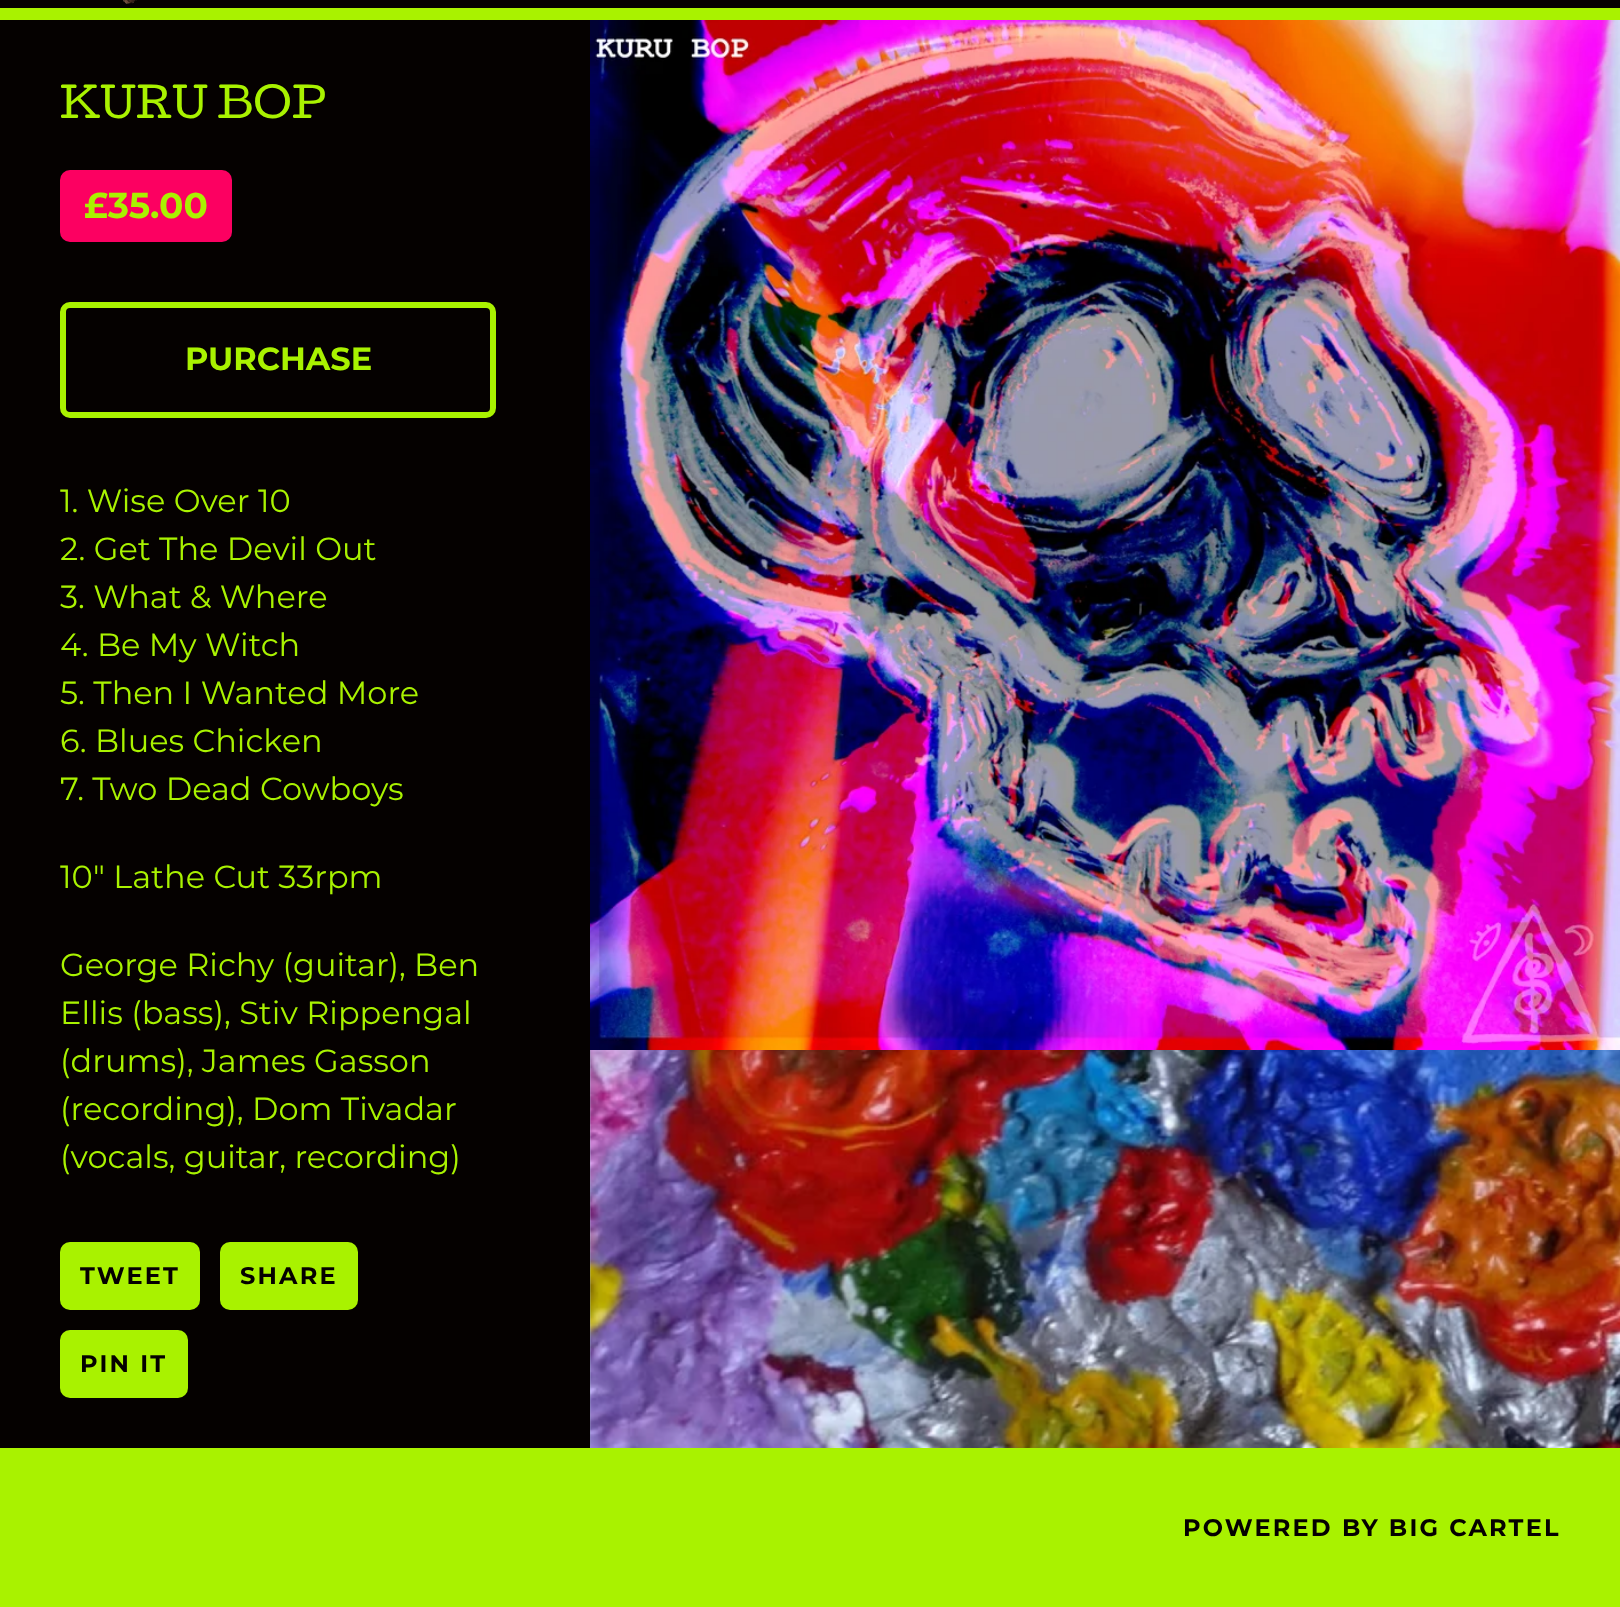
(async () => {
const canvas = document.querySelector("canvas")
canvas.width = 1620
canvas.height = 1607
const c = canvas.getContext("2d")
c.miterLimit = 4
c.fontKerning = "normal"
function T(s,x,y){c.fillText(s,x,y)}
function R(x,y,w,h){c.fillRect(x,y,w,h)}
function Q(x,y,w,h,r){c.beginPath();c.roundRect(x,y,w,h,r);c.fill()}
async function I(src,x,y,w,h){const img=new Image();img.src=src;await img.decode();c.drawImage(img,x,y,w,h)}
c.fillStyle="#050100"
R(0,0,1620,1607)
c.fillStyle="#a9f200"
R(0,8,1620,12)
await I("1.png",123,0,14,4)
c.font="40px Cutive"
T("KURU BOP",60,118)
c.fillStyle="#fc0061"
Q(60,170,172,72,10)
c.font="bold 36px Montserrat"
c.fillStyle="#a9f200"
T("£35.00",84,218)
c.beginPath()
c.roundRect(63,305,430,110,7)
c.strokeStyle="#a9f200"
c.lineWidth=6
c.stroke()
c.font="bold 32px Montserrat"
T("PURCHASE",185,370)
c.font="32px Montserrat"
T("1. Wise Over 10",60,512)
T("2. Get The Devil Out",60,560)
T("3. What & Where",60,608)
T("4. Be My Witch",60,656)
T("5. Then I Wanted More",60,704)
T("6. Blues Chicken",60,752)
T("7. Two Dead Cowboys",60,800)
T("10\" Lathe Cut 33rpm",60,888)
T("George Richy (guitar), Ben",60,976)
T("Ellis (bass), Stiv Rippengal",60,1024)
T("(drums), James Gasson",60,1072)
T("(recording), Dom Tivadar",60,1120)
T("(vocals, guitar, recording)",60,1168)
Q(60,1242,140,68,10)
c.letterSpacing="2.2px"
c.font="bold 24px Montserrat"
c.fillStyle="#050100"
T("TWEET",80,1284)
c.fillStyle="#a9f200"
Q(220,1242,138,68,10)
c.fillStyle="#050100"
T("SHARE",240,1284)
c.fillStyle="#a9f200"
Q(60,1330,128,68,10)
c.fillStyle="#050100"
T("PIN IT",80,1372)
await I("2.png",590,20,1030,1030)
await I("3.png",590,1050,1030,398)
c.fillStyle="#a9f200"
R(0,1448,1620,159)
c.fillStyle="#050100"
T("POWERED BY BIG CARTEL",1183,1536)
})()
